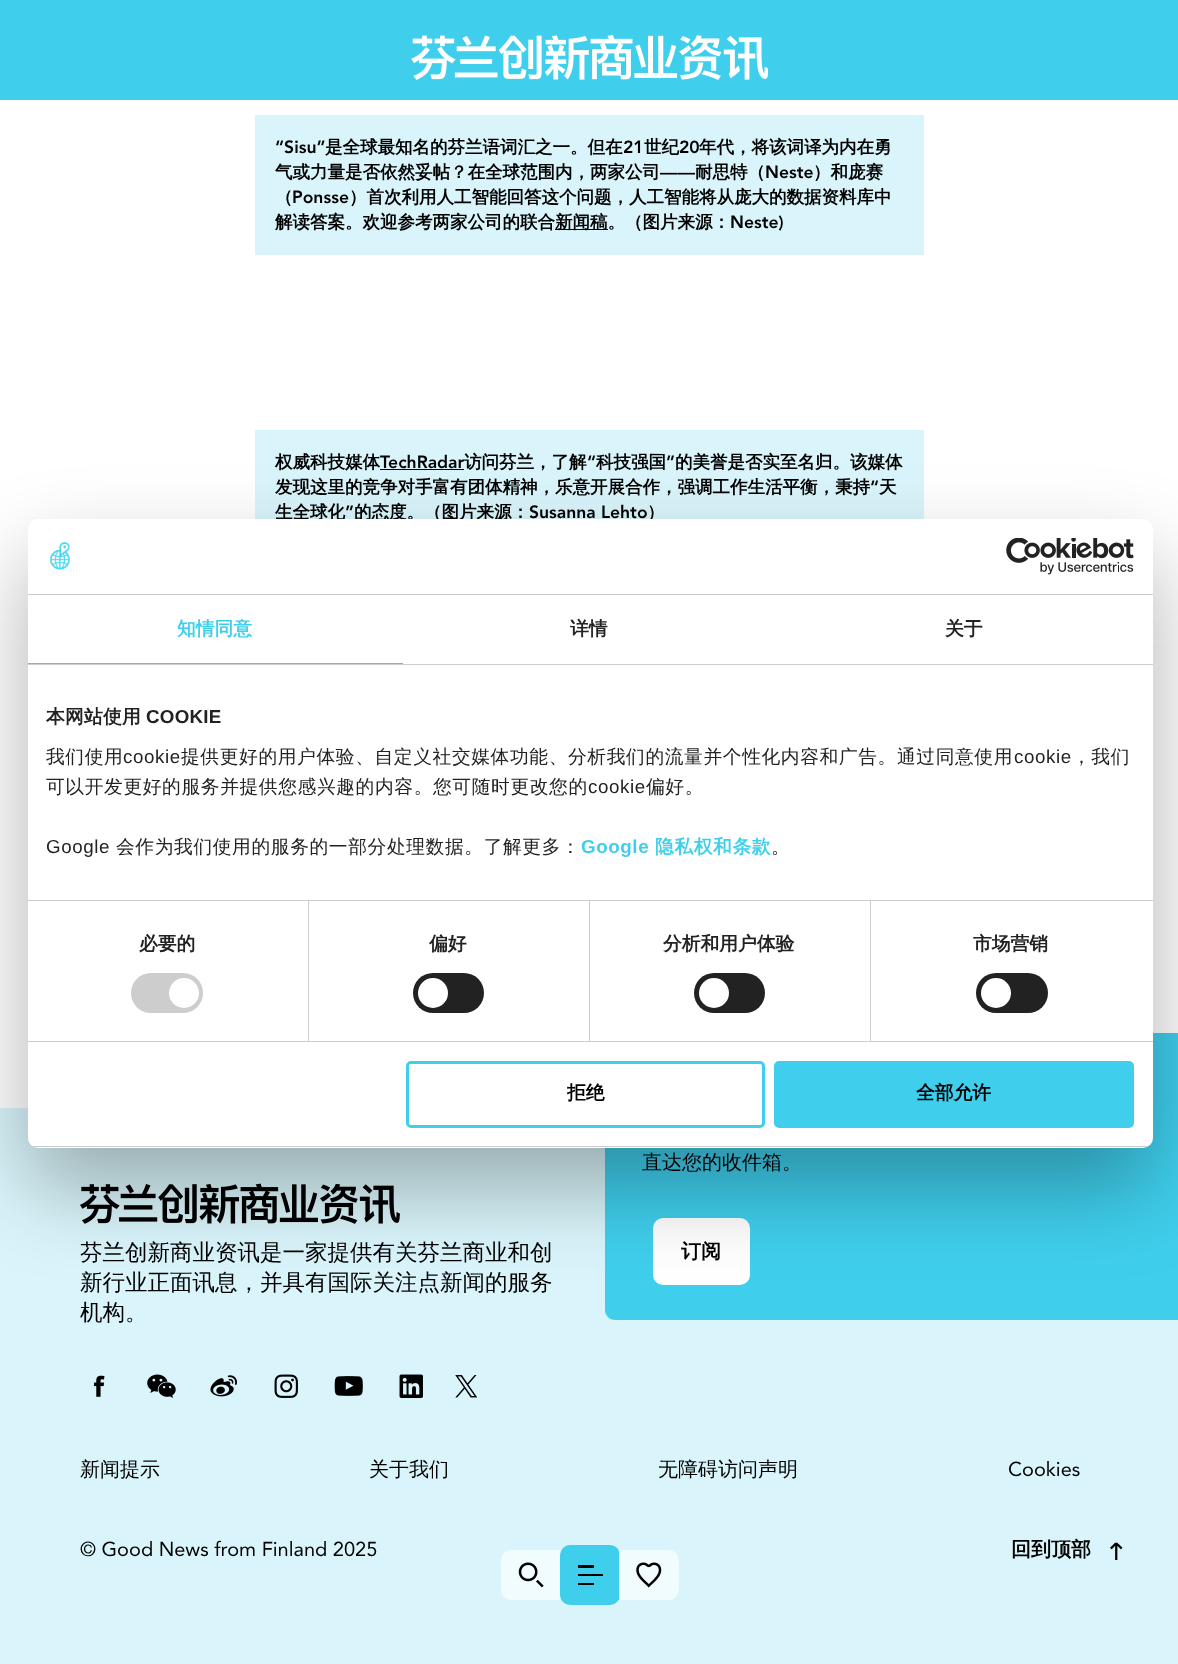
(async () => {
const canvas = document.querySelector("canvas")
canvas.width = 1178
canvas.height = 1664
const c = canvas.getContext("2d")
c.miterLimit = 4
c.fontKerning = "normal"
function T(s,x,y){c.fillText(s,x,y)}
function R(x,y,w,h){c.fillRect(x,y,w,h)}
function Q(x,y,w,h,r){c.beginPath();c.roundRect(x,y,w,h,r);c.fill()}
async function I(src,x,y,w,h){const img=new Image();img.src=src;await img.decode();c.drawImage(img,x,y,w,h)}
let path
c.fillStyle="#fff"
R(0,0,1178,1664)
c.fillStyle="#3fcfed"
R(0,0,1178,100)
await I("1.png",411,35,357,45)
c.fillStyle="#d9f5fb"
R(0,1108,1178,556)
c.fillStyle="#f1fcfe"
c.beginPath()
c.roundRect(501,1550,60,50,[10,0,0,10])
c.fill()
await I("2.png",518,1562,26,26)
c.fillStyle="#3fcfed"
Q(560,1545,60,60,10)
c.fillStyle="#000"
R(578,1565,16,3)
R(578,1574,25,2)
R(578,1583,16,2)
c.fillStyle="#f1fcfe"
c.beginPath()
c.roundRect(619,1550,60,50,[0,10,10,0])
c.fill()
await I("3.png",636,1562,26,26)
c.fillStyle="#d9f5fb"
R(255,115,669,140)
c.font="900 17.5px Avenir"
c.fillStyle="#000"
T("“Sisu”",275,153)
c.font="bold 17.5px WenQuanYi Zen Hei"
T("是全球最知名的芬兰语词汇之一。但在",325,153)
c.font="900 17.5px Avenir"
T("21",623,153)
c.font="bold 17.5px WenQuanYi Zen Hei"
T("世纪",644,153)
c.font="900 17.5px Avenir"
T("20",679,153)
c.font="bold 17.5px WenQuanYi Zen Hei"
T("年代，将该词译为内在勇",699,153)
T("气或力量是否依然妥帖？在全球范围内，两家公司",275,178)
c.font="900 17.5px Avenir"
T("——",660,178)
c.font="bold 17.5px WenQuanYi Zen Hei"
T("耐思特（",695,178)
c.font="900 17.5px Avenir"
T("Neste",765,178)
c.font="bold 17.5px WenQuanYi Zen Hei"
T("）和庞赛",813,178)
T("（",275,203)
c.font="900 17.5px Avenir"
T("Ponsse",292,203)
c.font="bold 17.5px WenQuanYi Zen Hei"
T("）首次利用人工智能回答这个问题，人工智能将从庞大的数据资料库中",349,203)
T("解读答案。欢迎参考两家公司的联合",275,228)
R(555,229,53,1)
T("新闻稿。（图片来源：",555,228)
c.font="900 17.5px Avenir"
T("Neste)",730,228)
c.fillStyle="#d9f5fb"
R(255,430,669,89)
c.font="bold 17.5px WenQuanYi Zen Hei"
c.fillStyle="#000"
T("权威科技媒体",275,468)
c.font="900 17.5px Avenir"
T("TechRadar",380,468)
R(380,469,84,1)
c.font="bold 17.5px WenQuanYi Zen Hei"
T("访问芬兰，了解",464,468)
c.font="900 17.5px Avenir"
T("“",587,468)
c.font="bold 17.5px WenQuanYi Zen Hei"
T("科技强国",596,468)
c.font="900 17.5px Avenir"
T("”",666,468)
c.font="bold 17.5px WenQuanYi Zen Hei"
T("的美誉是否实至名归。该媒体",675,468)
T("发现这里的竞争对手富有团体精神，乐意开展合作，强调工作生活平衡，秉持",275,493)
c.font="900 17.5px Avenir"
T("“",870,493)
c.font="bold 17.5px WenQuanYi Zen Hei"
T("天",879,493)
T("生全球化",275,518)
c.font="900 17.5px Avenir"
T("”",345,518)
c.font="bold 17.5px WenQuanYi Zen Hei"
T("的态度。（图片来源：",354,518)
c.font="900 17.5px Avenir"
T("Susanna Lehto",529,518)
c.font="bold 17.5px WenQuanYi Zen Hei"
T("）",647,518)
c.fillStyle="#3fcfed"
path = new Path2D("M615 1033h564v287h-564c-5.5 0-10-4.5-10-10v-267c0-5.5 4.5-10 10-10z")
c.fill(path)
c.font="500 20px WenQuanYi Zen Hei"
c.fillStyle="#000"
T("直达您的收件箱。",642,1169)
c.fillStyle="#fff"
Q(653,1218,97,67,10)
c.font="bold 20px WenQuanYi Zen Hei"
c.fillStyle="#000"
T("订阅",681,1258)
await I("4.png",80,1183,320,41)
c.font="500 22.5px WenQuanYi Zen Hei"
T("芬兰创新商业资讯是一家提供有关芬兰商业和创",80,1260)
T("新行业正面讯息，并具有国际关注点新闻的服务",80,1290)
T("机构。",80,1320)
await I("5.png",94,1375,11,22)
await I("6.png",147,1374,29,24)
await I("7.png",210,1375,27,22)
await I("8.png",274,1374,24,24)
await I("9.png",334,1376,29,20)
await I("10.png",399,1374,24,24)
await I("11.png",455,1375,23,23)
c.font="500 20px WenQuanYi Zen Hei"
T("新闻提示",80,1476)
T("关于我们",369,1476)
T("无障碍访问声明",658,1476)
c.font="20px Avenir"
T("Cookies",1008,1476)
T("© Good News from Finland 2025",80,1556)
c.font="bold 20px WenQuanYi Zen Hei"
T("回到顶部",1011,1556)
await I("12.png",1110,1542,13,18)
c.fillStyle="#0000004d"
c.filter="blur(42.5px)"
c.beginPath()
c.roundRect(28,559,1125,629,10)
c.fill()
c.filter="none"
c.fillStyle="#fff"
Q(28,519,1125,629,10)
c.fillStyle="#cdcdcd"
R(28,594,1125,1)
await I("13.png",50,542,21,28)
await I("14.png",1006,538,128,37)
R(28,664,1125,1)
c.fillStyle="#3fcfed"
R(28,663,375,1)
c.font="bold 18.75px WenQuanYi Zen Hei"
T("知情同意",177,635)
c.fillStyle="#222"
T("详情",570,635)
T("关于",945,635)
c.fillStyle="#cdcdcd"
R(28,900,1125,1)
c.letterSpacing="0.25px"
c.fillStyle="#222"
T("本网站使用",46,723)
c.font="bold 18.75px Liberation Sans"
T("COOKIE",146,723)
c.letterSpacing="0.6px"
c.font="500 18.75px WenQuanYi Zen Hei"
T("我们使用",46,763)
c.font="18.75px Liberation Sans"
T("cookie",123,763)
c.font="500 18.75px WenQuanYi Zen Hei"
T("提供更好的用户体验、自定义社交媒体功能、分析我们的流量并个性化内容和广告。通过同意使用",181,763)
c.font="18.75px Liberation Sans"
T("cookie",1014,763)
c.font="500 18.75px WenQuanYi Zen Hei"
T("，我们",1072,763)
T("可以开发更好的服务并提供您感兴趣的内容。您可随时更改您的",46,793)
c.font="18.75px Liberation Sans"
T("cookie",588,793)
c.font="500 18.75px WenQuanYi Zen Hei"
T("偏好。",646,793)
c.font="18.75px Liberation Sans"
T("Google",46,853)
c.font="500 18.75px WenQuanYi Zen Hei"
T("会作为我们使用的服务的一部分处理数据。了解更多：",116,853)
c.font="bold 18.75px Liberation Sans"
c.fillStyle="#3fcfed"
T("Google",581,853)
c.font="bold 18.75px WenQuanYi Zen Hei"
T("隐私权和条款",655,853)
c.font="500 18.75px WenQuanYi Zen Hei"
c.fillStyle="#222"
T("。",771,853)
c.fillStyle="#cdcdcd"
R(28,1041,1125,1)
R(308,901,1,140)
c.letterSpacing="0px"
c.font="bold 18.75px WenQuanYi Zen Hei"
c.fillStyle="#222"
T("必要的",139,950)
c.fillStyle="#cdcdcd"
Q(131,973,72,40,20)
c.fillStyle="#fff"
c.beginPath()
c.arc(184,993,15,0,7)
c.fill()
c.fillStyle="#cdcdcd"
R(589,901,1,140)
c.fillStyle="#222"
T("偏好",429,950)
Q(413,973,71,40,20)
c.fillStyle="#fff"
c.beginPath()
c.arc(433,993,15,0,7)
c.fill()
c.fillStyle="#cdcdcd"
R(870,901,1,140)
c.fillStyle="#222"
T("分析和用户体验",663,950)
Q(694,973,71,40,20)
c.fillStyle="#fff"
c.beginPath()
c.arc(714,993,15,0,7)
c.fill()
c.fillStyle="#222"
T("市场营销",973,950)
Q(976,973,72,40,20)
c.fillStyle="#fff"
c.beginPath()
c.arc(996,993,15,0,7)
c.fill()
c.save()
c.beginPath()
c.roundRect(28,519,1125,629,10)
c.clip()
c.fillStyle="#cdcdcd"
R(28,1146,1125,1)
c.restore()
c.beginPath()
c.roundRect(407.5,1062.5,356,64,3.5)
c.strokeStyle="#3fcfed"
c.lineWidth=3
c.stroke()
c.fillStyle="#000"
T("拒绝",567,1099)
c.fillStyle="#3fcfed"
c.beginPath()
c.roundRect(775.5,1062.5,357,64,3.5)
c.fill()
c.stroke()
c.fillStyle="#000"
T("全部允许",916,1099)
})()
